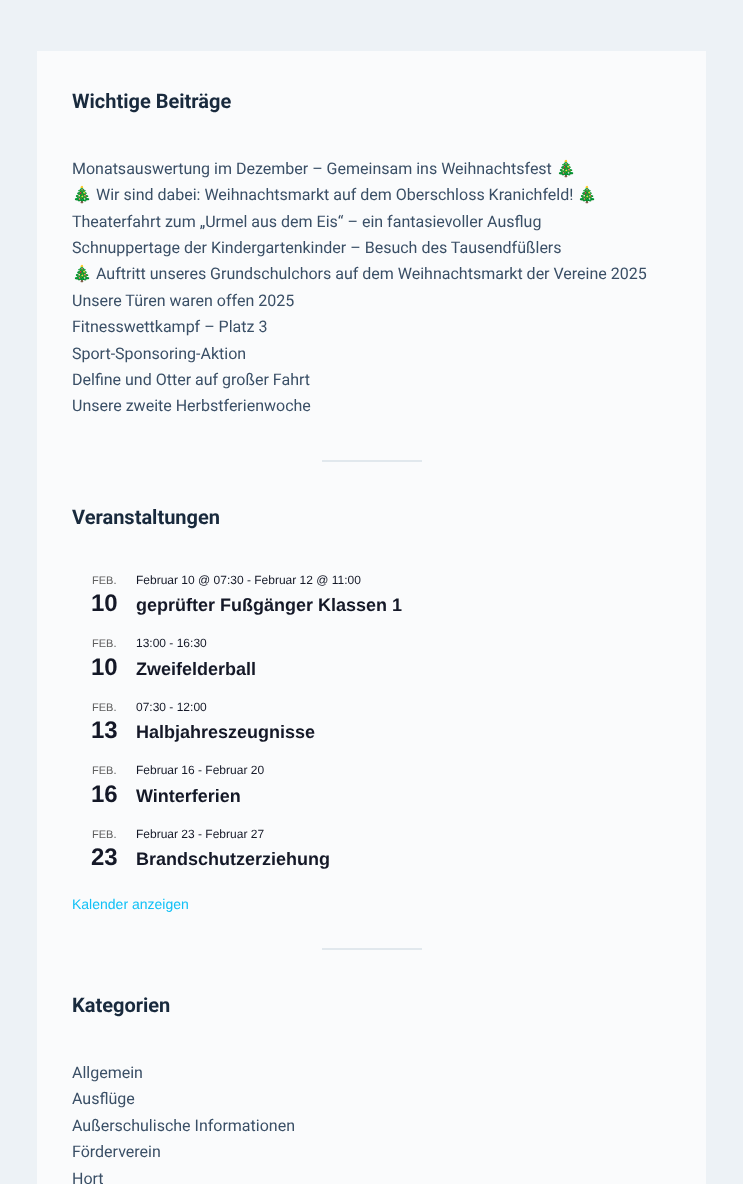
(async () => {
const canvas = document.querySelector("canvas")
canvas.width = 743
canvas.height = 1184
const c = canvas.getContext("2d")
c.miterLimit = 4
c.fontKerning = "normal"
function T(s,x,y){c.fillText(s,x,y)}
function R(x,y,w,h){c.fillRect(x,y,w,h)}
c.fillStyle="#edf2f6"
R(0,0,743,1184)
c.fillStyle="#fafbfc"
R(37,51,669,1133)
c.font="bold 20px Roboto"
c.fillStyle="#192a3d"
T("Wichtige Beiträge",72,108)
c.font="16px Roboto"
c.fillStyle="#3a4f66"
T("Monatsauswertung im Dezember – Gemeinsam ins Weihnachtsfest",72,174)
c.font="16px Noto Color Emoji"
T("🎄",556,174)
T("🎄",72,200)
c.font="16px Roboto"
T("Wir sind dabei: Weihnachtsmarkt auf dem Oberschloss Kranichfeld!",96,200)
c.font="16px Noto Color Emoji"
T("🎄",577,200)
c.font="16px Roboto"
T("Theaterfahrt zum „Urmel aus dem Eis“ – ein fantasievoller Ausflug",72,227)
T("Schnuppertage der Kindergartenkinder – Besuch des Tausendfüßlers",72,253)
c.font="16px Noto Color Emoji"
T("🎄",72,279)
c.font="16px Roboto"
T("Auftritt unseres Grundschulchors auf dem Weihnachtsmarkt der Vereine 2025",96,279)
T("Unsere Türen waren offen 2025",72,306)
T("Fitnesswettkampf – Platz 3",72,332)
T("Sport-Sponsoring-Aktion",72,359)
T("Delfine und Otter auf großer Fahrt",72,385)
T("Unsere zweite Herbstferienwoche",72,411)
c.fillStyle="#e1e8ed"
R(322,460,100,2)
c.font="bold 20px Roboto"
c.fillStyle="#192a3d"
T("Veranstaltungen",72,524)
c.font="11px Liberation Sans"
c.fillStyle="#5d5d5d"
T("FEB.",92,584)
c.font="bold 24px Liberation Sans"
c.fillStyle="#141827"
T("10",91,611)
c.font="12px Liberation Sans"
T("Februar 10 @ 07:30 - Februar 12 @ 11:00",136,584)
c.font="bold 18px Liberation Sans"
T("geprüfter Fußgänger Klassen 1",136,611)
c.font="11px Liberation Sans"
c.fillStyle="#5d5d5d"
T("FEB.",92,647)
c.font="bold 24px Liberation Sans"
c.fillStyle="#141827"
T("10",91,675)
c.font="12px Liberation Sans"
T("13:00 - 16:30",136,647)
c.font="bold 18px Liberation Sans"
T("Zweifelderball",136,675)
c.font="11px Liberation Sans"
c.fillStyle="#5d5d5d"
T("FEB.",92,711)
c.font="bold 24px Liberation Sans"
c.fillStyle="#141827"
T("13",91,738)
c.font="12px Liberation Sans"
T("07:30 - 12:00",136,711)
c.font="bold 18px Liberation Sans"
T("Halbjahreszeugnisse",136,738)
c.font="11px Liberation Sans"
c.fillStyle="#5d5d5d"
T("FEB.",92,774)
c.font="bold 24px Liberation Sans"
c.fillStyle="#141827"
T("16",91,802)
c.font="12px Liberation Sans"
T("Februar 16 - Februar 20",136,774)
c.font="bold 18px Liberation Sans"
T("Winterferien",136,802)
c.font="11px Liberation Sans"
c.fillStyle="#5d5d5d"
T("FEB.",92,838)
c.font="bold 24px Liberation Sans"
c.fillStyle="#141827"
T("23",91,865)
c.font="12px Liberation Sans"
T("Februar 23 - Februar 27",136,838)
c.font="bold 18px Liberation Sans"
T("Brandschutzerziehung",136,865)
c.font="14px Liberation Sans"
c.fillStyle="#10c0f6"
T("Kalender anzeigen",72,909)
c.fillStyle="#e1e8ed"
R(322,948,100,2)
c.font="bold 20px Roboto"
c.fillStyle="#192a3d"
T("Kategorien",72,1012)
c.font="16px Roboto"
c.fillStyle="#3a4f66"
T("Allgemein",72,1078)
T("Ausflüge",72,1104)
T("Außerschulische Informationen",72,1131)
T("Förderverein",72,1157)
T("Hort",72,1184)
})()
